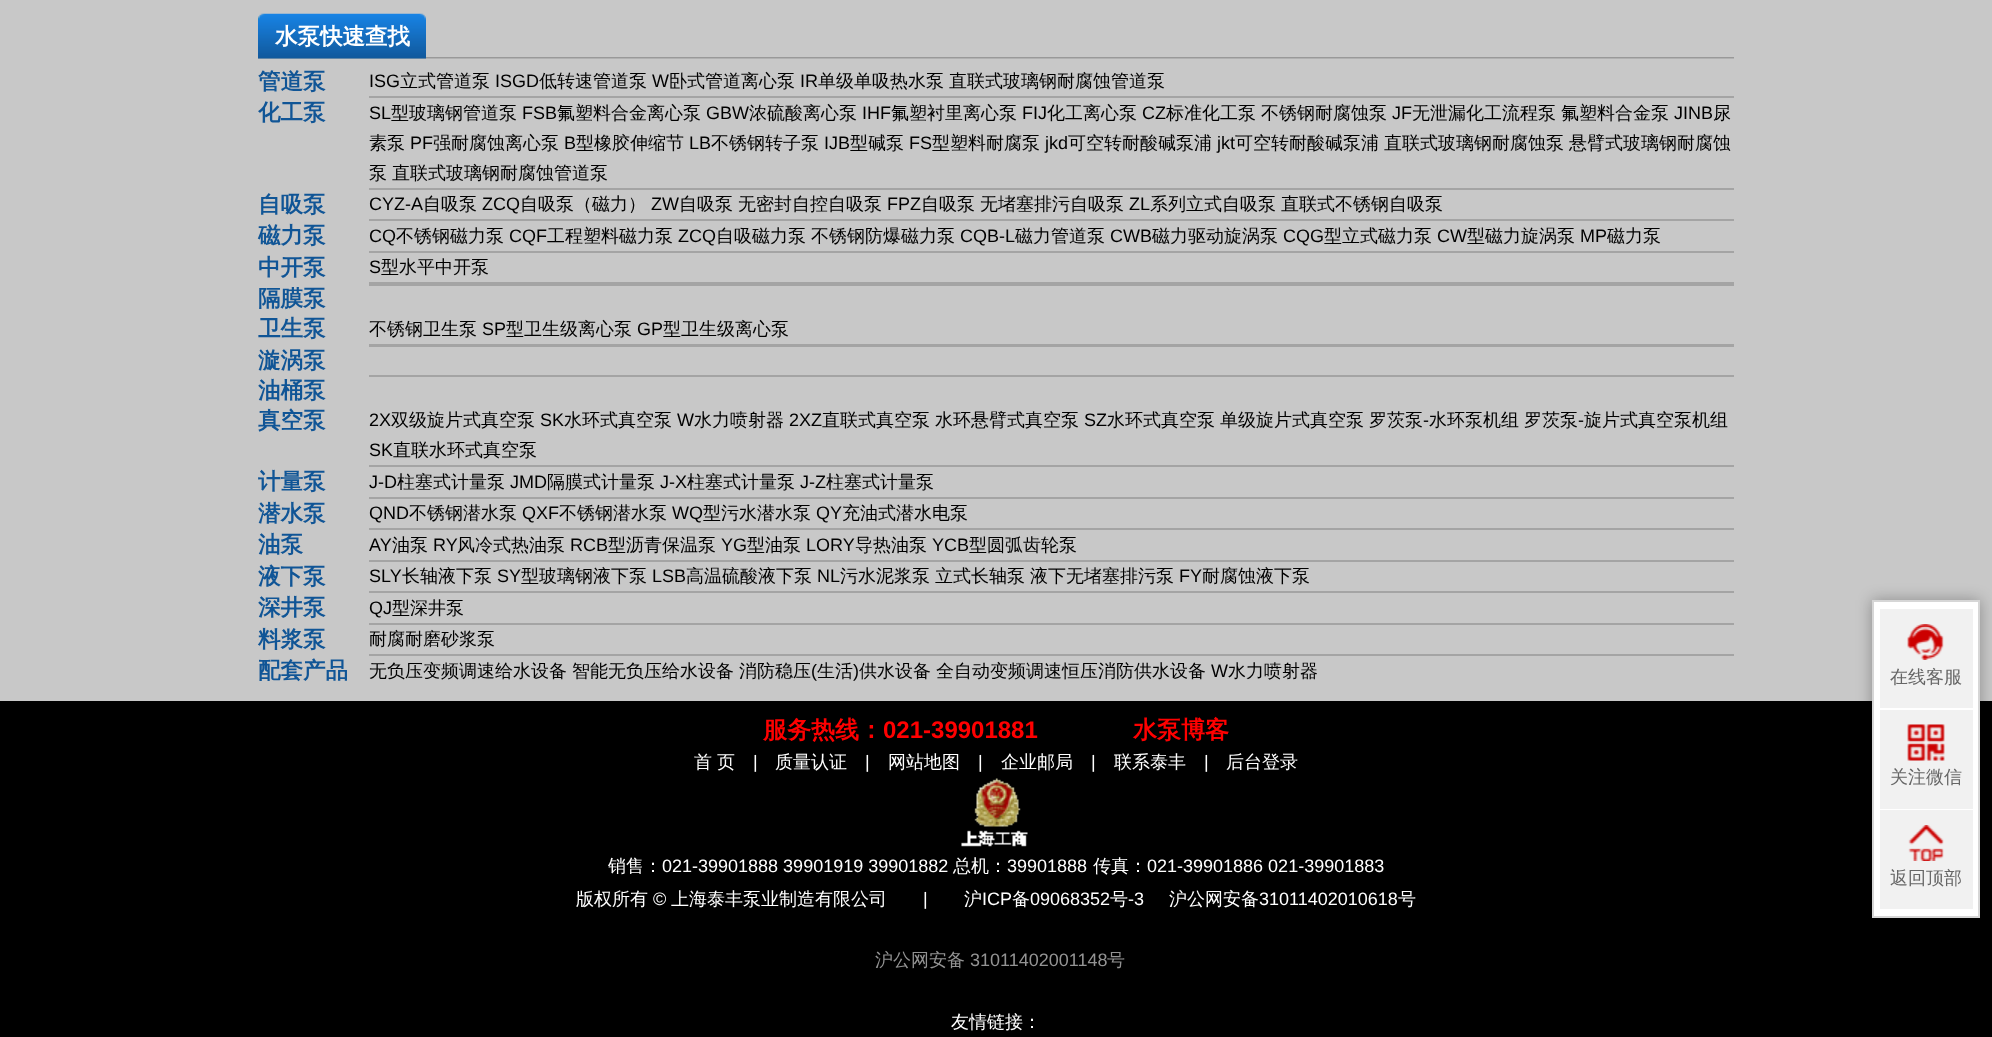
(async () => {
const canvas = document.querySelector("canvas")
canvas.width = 1992
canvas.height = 1037
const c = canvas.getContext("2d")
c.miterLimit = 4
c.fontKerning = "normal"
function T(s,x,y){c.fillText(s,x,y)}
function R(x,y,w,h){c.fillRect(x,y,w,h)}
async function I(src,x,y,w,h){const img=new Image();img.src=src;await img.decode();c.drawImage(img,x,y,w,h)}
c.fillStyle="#c8c8c8"
R(0,0,1992,1037)
await I("1.png",258,57,1476,2)
await I("2.png",258,13,168,46)
c.font="bold 22.5px WenQuanYi Zen Hei"
c.fillStyle="#fff"
T("水泵快速查找",275,44)
c.fillStyle="#105596"
T("管道泵",258,89)
c.fillStyle="#a4a4a4"
R(369,96,1365,2)
c.font="18px Liberation Sans"
c.fillStyle="#000"
T("ISG",369,87)
c.font="500 18px WenQuanYi Zen Hei"
T("立式管道泵",400,87)
c.font="18px Liberation Sans"
T("ISGD",495,87)
c.font="500 18px WenQuanYi Zen Hei"
T("低转速管道泵",539,87)
c.font="18px Liberation Sans"
T("W",652,87)
c.font="500 18px WenQuanYi Zen Hei"
T("卧式管道离心泵",669,87)
c.font="18px Liberation Sans"
T("IR",800,87)
c.font="500 18px WenQuanYi Zen Hei"
T("单级单吸热水泵",818,87)
T("直联式玻璃钢耐腐蚀管道泵",949,87)
c.font="bold 22.5px WenQuanYi Zen Hei"
c.fillStyle="#105596"
T("化工泵",258,120)
c.fillStyle="#a4a4a4"
R(369,188,1365,2)
c.font="18px Liberation Sans"
c.fillStyle="#000"
T("SL",369,119)
c.font="500 18px WenQuanYi Zen Hei"
T("型玻璃钢管道泵",391,119)
c.font="18px Liberation Sans"
T("FSB",522,119)
c.font="500 18px WenQuanYi Zen Hei"
T("氟塑料合金离心泵",557,119)
c.font="18px Liberation Sans"
T("GBW",706,119)
c.font="500 18px WenQuanYi Zen Hei"
T("浓硫酸离心泵",749,119)
c.font="18px Liberation Sans"
T("IHF",862,119)
c.font="500 18px WenQuanYi Zen Hei"
T("氟塑衬里离心泵",891,119)
c.font="18px Liberation Sans"
T("FIJ",1022,119)
c.font="500 18px WenQuanYi Zen Hei"
T("化工离心泵",1047,119)
c.font="18px Liberation Sans"
T("CZ",1142,119)
c.font="500 18px WenQuanYi Zen Hei"
T("标准化工泵",1166,119)
T("不锈钢耐腐蚀泵",1261,119)
c.font="18px Liberation Sans"
T("JF",1392,119)
c.font="500 18px WenQuanYi Zen Hei"
T("无泄漏化工流程泵",1412,119)
T("氟塑料合金泵",1561,119)
c.font="18px Liberation Sans"
T("JINB",1674,119)
c.font="500 18px WenQuanYi Zen Hei"
T("尿",1713,119)
T("素泵",369,149)
c.font="18px Liberation Sans"
T("PF",410,149)
c.font="500 18px WenQuanYi Zen Hei"
T("强耐腐蚀离心泵",433,149)
c.font="18px Liberation Sans"
T("B",564,149)
c.font="500 18px WenQuanYi Zen Hei"
T("型橡胶伸缩节",576,149)
c.font="18px Liberation Sans"
T("LB",689,149)
c.font="500 18px WenQuanYi Zen Hei"
T("不锈钢转子泵",711,149)
c.font="18px Liberation Sans"
T("IJB",824,149)
c.font="500 18px WenQuanYi Zen Hei"
T("型碱泵",850,149)
c.font="18px Liberation Sans"
T("FS",909,149)
c.font="500 18px WenQuanYi Zen Hei"
T("型塑料耐腐泵",932,149)
c.font="18px Liberation Sans"
T("jkd",1045,149)
c.font="500 18px WenQuanYi Zen Hei"
T("可空转耐酸碱泵浦",1068,149)
c.font="18px Liberation Sans"
T("jkt",1217,149)
c.font="500 18px WenQuanYi Zen Hei"
T("可空转耐酸碱泵浦",1235,149)
T("直联式玻璃钢耐腐蚀泵",1384,149)
T("悬臂式玻璃钢耐腐蚀",1569,149)
T("泵",369,179)
T("直联式玻璃钢耐腐蚀管道泵",392,179)
c.font="bold 22.5px WenQuanYi Zen Hei"
c.fillStyle="#105596"
T("自吸泵",258,212)
c.fillStyle="#a4a4a4"
R(369,219,1365,2)
c.font="18px Liberation Sans"
c.fillStyle="#000"
T("CYZ-A",369,210)
c.font="500 18px WenQuanYi Zen Hei"
T("自吸泵",423,210)
c.font="18px Liberation Sans"
T("ZCQ",482,210)
c.font="500 18px WenQuanYi Zen Hei"
T("自吸泵（磁力）",520,210)
c.font="18px Liberation Sans"
T("ZW",651,210)
c.font="500 18px WenQuanYi Zen Hei"
T("自吸泵",679,210)
T("无密封自控自吸泵",738,210)
c.font="18px Liberation Sans"
T("FPZ",887,210)
c.font="500 18px WenQuanYi Zen Hei"
T("自吸泵",921,210)
T("无堵塞排污自吸泵",980,210)
c.font="18px Liberation Sans"
T("ZL",1129,210)
c.font="500 18px WenQuanYi Zen Hei"
T("系列立式自吸泵",1150,210)
T("直联式不锈钢自吸泵",1281,210)
c.font="bold 22.5px WenQuanYi Zen Hei"
c.fillStyle="#105596"
T("磁力泵",258,243)
c.fillStyle="#a4a4a4"
R(369,251,1365,2)
c.font="18px Liberation Sans"
c.fillStyle="#000"
T("CQ",369,242)
c.font="500 18px WenQuanYi Zen Hei"
T("不锈钢磁力泵",396,242)
c.font="18px Liberation Sans"
T("CQF",509,242)
c.font="500 18px WenQuanYi Zen Hei"
T("工程塑料磁力泵",547,242)
c.font="18px Liberation Sans"
T("ZCQ",678,242)
c.font="500 18px WenQuanYi Zen Hei"
T("自吸磁力泵",716,242)
T("不锈钢防爆磁力泵",811,242)
c.font="18px Liberation Sans"
T("CQB-L",960,242)
c.font="500 18px WenQuanYi Zen Hei"
T("磁力管道泵",1015,242)
c.font="18px Liberation Sans"
T("CWB",1110,242)
c.font="500 18px WenQuanYi Zen Hei"
T("磁力驱动旋涡泵",1152,242)
c.font="18px Liberation Sans"
T("CQG",1283,242)
c.font="500 18px WenQuanYi Zen Hei"
T("型立式磁力泵",1324,242)
c.font="18px Liberation Sans"
T("CW",1437,242)
c.font="500 18px WenQuanYi Zen Hei"
T("型磁力旋涡泵",1467,242)
c.font="18px Liberation Sans"
T("MP",1580,242)
c.font="500 18px WenQuanYi Zen Hei"
T("磁力泵",1607,242)
c.font="bold 22.5px WenQuanYi Zen Hei"
c.fillStyle="#105596"
T("中开泵",258,275)
c.fillStyle="#a4a4a4"
R(369,282,1365,4)
c.font="18px Liberation Sans"
c.fillStyle="#000"
T("S",369,273)
c.font="500 18px WenQuanYi Zen Hei"
T("型水平中开泵",381,273)
c.font="bold 22.5px WenQuanYi Zen Hei"
c.fillStyle="#105596"
T("隔膜泵",258,306)
T("卫生泵",258,336)
c.fillStyle="#a4a4a4"
R(369,344,1365,3)
c.font="500 18px WenQuanYi Zen Hei"
c.fillStyle="#000"
T("不锈钢卫生泵",369,335)
c.font="18px Liberation Sans"
T("SP",482,335)
c.font="500 18px WenQuanYi Zen Hei"
T("型卫生级离心泵",506,335)
c.font="18px Liberation Sans"
T("GP",637,335)
c.font="500 18px WenQuanYi Zen Hei"
T("型卫生级离心泵",663,335)
c.font="bold 22.5px WenQuanYi Zen Hei"
c.fillStyle="#105596"
T("漩涡泵",258,368)
c.fillStyle="#a4a4a4"
R(369,375,1365,2)
c.fillStyle="#105596"
T("油桶泵",258,398)
T("真空泵",258,428)
c.fillStyle="#a4a4a4"
R(369,465,1365,2)
c.font="18px Liberation Sans"
c.fillStyle="#000"
T("2X",369,426)
c.font="500 18px WenQuanYi Zen Hei"
T("双级旋片式真空泵",391,426)
c.font="18px Liberation Sans"
T("SK",540,426)
c.font="500 18px WenQuanYi Zen Hei"
T("水环式真空泵",564,426)
c.font="18px Liberation Sans"
T("W",677,426)
c.font="500 18px WenQuanYi Zen Hei"
T("水力喷射器",694,426)
c.font="18px Liberation Sans"
T("2XZ",789,426)
c.font="500 18px WenQuanYi Zen Hei"
T("直联式真空泵",822,426)
T("水环悬臂式真空泵",935,426)
c.font="18px Liberation Sans"
T("SZ",1084,426)
c.font="500 18px WenQuanYi Zen Hei"
T("水环式真空泵",1107,426)
T("单级旋片式真空泵",1220,426)
T("罗茨泵",1369,426)
c.font="18px Liberation Sans"
T("-",1423,426)
c.font="500 18px WenQuanYi Zen Hei"
T("水环泵机组",1429,426)
T("罗茨泵",1524,426)
c.font="18px Liberation Sans"
T("-",1578,426)
c.font="500 18px WenQuanYi Zen Hei"
T("旋片式真空泵机组",1584,426)
c.font="18px Liberation Sans"
T("SK",369,456)
c.font="500 18px WenQuanYi Zen Hei"
T("直联水环式真空泵",393,456)
c.font="bold 22.5px WenQuanYi Zen Hei"
c.fillStyle="#105596"
T("计量泵",258,489)
c.fillStyle="#a4a4a4"
R(369,497,1365,2)
c.font="18px Liberation Sans"
c.fillStyle="#000"
T("J-D",369,488)
c.font="500 18px WenQuanYi Zen Hei"
T("柱塞式计量泵",397,488)
c.font="18px Liberation Sans"
T("JMD",510,488)
c.font="500 18px WenQuanYi Zen Hei"
T("隔膜式计量泵",547,488)
c.font="18px Liberation Sans"
T("J-X",660,488)
c.font="500 18px WenQuanYi Zen Hei"
T("柱塞式计量泵",687,488)
c.font="18px Liberation Sans"
T("J-Z",800,488)
c.font="500 18px WenQuanYi Zen Hei"
T("柱塞式计量泵",826,488)
c.font="bold 22.5px WenQuanYi Zen Hei"
c.fillStyle="#105596"
T("潜水泵",258,521)
c.fillStyle="#a4a4a4"
R(369,528,1365,2)
c.font="18px Liberation Sans"
c.fillStyle="#000"
T("QND",369,519)
c.font="500 18px WenQuanYi Zen Hei"
T("不锈钢潜水泵",409,519)
c.font="18px Liberation Sans"
T("QXF",522,519)
c.font="500 18px WenQuanYi Zen Hei"
T("不锈钢潜水泵",559,519)
c.font="18px Liberation Sans"
T("WQ",672,519)
c.font="500 18px WenQuanYi Zen Hei"
T("型污水潜水泵",703,519)
c.font="18px Liberation Sans"
T("QY",816,519)
c.font="500 18px WenQuanYi Zen Hei"
T("充油式潜水电泵",842,519)
c.font="bold 22.5px WenQuanYi Zen Hei"
c.fillStyle="#105596"
T("油泵",258,552)
c.fillStyle="#a4a4a4"
R(369,560,1365,2)
c.font="18px Liberation Sans"
c.fillStyle="#000"
T("AY",369,551)
c.font="500 18px WenQuanYi Zen Hei"
T("油泵",392,551)
c.font="18px Liberation Sans"
T("RY",433,551)
c.font="500 18px WenQuanYi Zen Hei"
T("风冷式热油泵",457,551)
c.font="18px Liberation Sans"
T("RCB",570,551)
c.font="500 18px WenQuanYi Zen Hei"
T("型沥青保温泵",608,551)
c.font="18px Liberation Sans"
T("YG",721,551)
c.font="500 18px WenQuanYi Zen Hei"
T("型油泵",747,551)
c.font="18px Liberation Sans"
T("LORY",806,551)
c.font="500 18px WenQuanYi Zen Hei"
T("导热油泵",855,551)
c.font="18px Liberation Sans"
T("YCB",932,551)
c.font="500 18px WenQuanYi Zen Hei"
T("型圆弧齿轮泵",969,551)
c.font="bold 22.5px WenQuanYi Zen Hei"
c.fillStyle="#105596"
T("液下泵",258,584)
c.fillStyle="#a4a4a4"
R(369,591,1365,2)
c.font="18px Liberation Sans"
c.fillStyle="#000"
T("SLY",369,582)
c.font="500 18px WenQuanYi Zen Hei"
T("长轴液下泵",402,582)
c.font="18px Liberation Sans"
T("SY",497,582)
c.font="500 18px WenQuanYi Zen Hei"
T("型玻璃钢液下泵",521,582)
c.font="18px Liberation Sans"
T("LSB",652,582)
c.font="500 18px WenQuanYi Zen Hei"
T("高温硫酸液下泵",686,582)
c.font="18px Liberation Sans"
T("NL",817,582)
c.font="500 18px WenQuanYi Zen Hei"
T("污水泥浆泵",840,582)
T("立式长轴泵",935,582)
T("液下无堵塞排污泵",1030,582)
c.font="18px Liberation Sans"
T("FY",1179,582)
c.font="500 18px WenQuanYi Zen Hei"
T("耐腐蚀液下泵",1202,582)
c.font="bold 22.5px WenQuanYi Zen Hei"
c.fillStyle="#105596"
T("深井泵",258,615)
c.fillStyle="#a4a4a4"
R(369,623,1365,2)
c.font="18px Liberation Sans"
c.fillStyle="#000"
T("QJ",369,614)
c.font="500 18px WenQuanYi Zen Hei"
T("型深井泵",392,614)
c.font="bold 22.5px WenQuanYi Zen Hei"
c.fillStyle="#105596"
T("料浆泵",258,647)
c.fillStyle="#a4a4a4"
R(369,654,1365,2)
c.font="500 18px WenQuanYi Zen Hei"
c.fillStyle="#000"
T("耐腐耐磨砂浆泵",369,645)
c.font="bold 22.5px WenQuanYi Zen Hei"
c.fillStyle="#105596"
T("配套产品",258,678)
c.font="500 18px WenQuanYi Zen Hei"
c.fillStyle="#000"
T("无负压变频调速给水设备",369,677)
T("智能无负压给水设备",572,677)
T("消防稳压",739,677)
c.font="18px Liberation Sans"
T("(",811,677)
c.font="500 18px WenQuanYi Zen Hei"
T("生活",817,677)
c.font="18px Liberation Sans"
T(")",853,677)
c.font="500 18px WenQuanYi Zen Hei"
T("供水设备",859,677)
T("全自动变频调速恒压消防供水设备",936,677)
c.font="18px Liberation Sans"
T("W",1211,677)
c.font="500 18px WenQuanYi Zen Hei"
T("水力喷射器",1228,677)
R(0,701,1992,336)
c.font="bold 24px WenQuanYi Zen Hei"
c.fillStyle="#f00"
T("服务热线：",763,738)
c.font="bold 24px Liberation Sans"
T("021-39901881",883,738)
c.font="bold 24px WenQuanYi Zen Hei"
T("水泵博客",1133,738)
c.font="500 18px WenQuanYi Zen Hei"
c.fillStyle="#fff"
T("首",694,768)
T("页",717,768)
c.font="18px Liberation Sans"
T("|",753,768)
c.font="500 18px WenQuanYi Zen Hei"
T("质量认证",775,768)
c.font="18px Liberation Sans"
T("|",865,768)
c.font="500 18px WenQuanYi Zen Hei"
T("网站地图",888,768)
c.font="18px Liberation Sans"
T("|",978,768)
c.font="500 18px WenQuanYi Zen Hei"
T("企业邮局",1001,768)
c.font="18px Liberation Sans"
T("|",1091,768)
c.font="500 18px WenQuanYi Zen Hei"
T("联系泰丰",1114,768)
c.font="18px Liberation Sans"
T("|",1204,768)
c.font="500 18px WenQuanYi Zen Hei"
T("后台登录",1226,768)
await I("3.png",961,778,67,69)
T("销售：",608,872)
c.font="18px Liberation Sans"
T("021-39901888 39901919 39901882",662,872)
c.font="500 18px WenQuanYi Zen Hei"
T("总机：",953,872)
c.font="18px Liberation Sans"
T("39901888",1007,872)
c.font="500 18px WenQuanYi Zen Hei"
T("传真：",1093,872)
c.font="18px Liberation Sans"
T("021-39901886 021-39901883",1147,872)
c.font="500 18px WenQuanYi Zen Hei"
T("版权所有",576,905)
c.font="18px Liberation Sans"
T("©",653,905)
c.font="500 18px WenQuanYi Zen Hei"
T("上海泰丰泵业制造有限公司",671,905)
c.font="18px Liberation Sans"
T("|",923,905)
c.font="500 18px WenQuanYi Zen Hei"
T("沪",964,905)
c.font="18px Liberation Sans"
T("ICP",982,905)
c.font="500 18px WenQuanYi Zen Hei"
T("备",1012,905)
c.font="18px Liberation Sans"
T("09068352",1030,905)
c.font="500 18px WenQuanYi Zen Hei"
T("号",1110,905)
c.font="18px Liberation Sans"
T("-3",1128,905)
c.font="500 18px WenQuanYi Zen Hei"
T("沪公网安备",1169,905)
c.font="18px Liberation Sans"
T("31011402010618",1259,905)
c.font="500 18px WenQuanYi Zen Hei"
T("号",1398,905)
c.fillStyle="#939393"
T("沪公网安备",875,966)
c.font="18px Liberation Sans"
T("31011402001148",970,966)
c.font="500 18px WenQuanYi Zen Hei"
T("号",1107,966)
c.fillStyle="#fff"
T("友情链接：",951,1028)
c.fillStyle="#0000004d"
c.filter="blur(7.5px)"
c.beginPath()
c.rect(1872,600,108,318)
c.fill()
c.filter="none"
c.fillStyle="#fff"
c.beginPath()
c.rect(1873,601,106,316)
c.fill()
c.strokeStyle="#d6d6d6"
c.lineWidth=2
c.stroke()
c.fillStyle="#f1f1f1"
R(1880,609,93,99)
await I("4.png",1907,624,37,36)
c.fillStyle="#666"
T("在线客服",1890,683)
c.fillStyle="#f1f1f1"
R(1880,710,93,99)
await I("5.png",1907,724,38,37)
c.fillStyle="#666"
T("关注微信",1890,783)
c.fillStyle="#f1f1f1"
R(1880,810,93,99)
await I("6.png",1908,825,36,36)
c.fillStyle="#666"
T("返回顶部",1890,884)
})()
